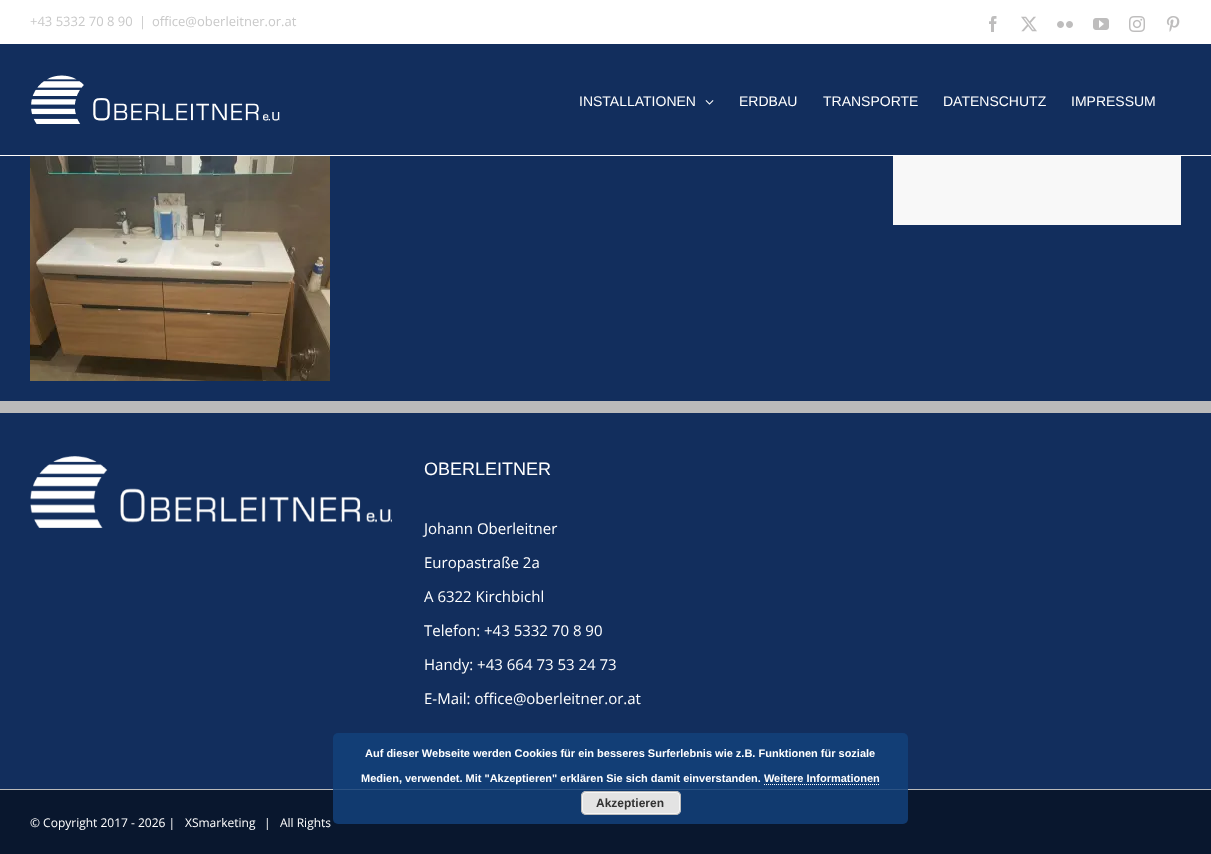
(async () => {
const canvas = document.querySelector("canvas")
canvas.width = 1211
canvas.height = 854
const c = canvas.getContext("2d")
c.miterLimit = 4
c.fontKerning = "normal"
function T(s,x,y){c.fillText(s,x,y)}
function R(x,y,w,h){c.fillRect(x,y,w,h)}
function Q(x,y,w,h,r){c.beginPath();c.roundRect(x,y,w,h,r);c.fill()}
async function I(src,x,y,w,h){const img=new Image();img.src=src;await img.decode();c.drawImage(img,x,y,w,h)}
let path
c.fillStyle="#122e5d"
R(0,0,1211,854)
c.fillStyle="#fff"
R(0,0,1211,44)
c.font="13px Open Sans"
c.fillStyle="#c9c9c9"
T("+43 5332 70 8 90",30,26)
T("|",139,26)
T("office@oberleitner.or.at",152,26)
await I("1.png",989,16,8,16)
await I("2.png",1021,16,16,16)
await I("3.png",1057,21,16,7)
await I("4.png",1093,18,16,12)
await I("5.png",1129,16,16,16)
await I("6.png",1166,16,14,16)
c.fillStyle="#fff"
R(0,155,1211,1)
await I("7.png",31,75,249,49)
c.font="14px Liberation Sans"
T("INSTALLATIONEN",579,106)
await I("8.png",705,100,9,5)
T("ERDBAU",739,106)
T("TRANSPORTE",823,106)
T("DATENSCHUTZ",943,106)
T("IMPRESSUM",1071,106)
await I("9.png",30,156,300,225)
c.fillStyle="#f8f8f8"
R(893,156,288,69)
c.fillStyle="#bababa"
R(0,401,1211,12)
await I("10.png",30,456,362,72)
c.font="18px Liberation Sans"
c.fillStyle="#fff"
T("OBERLEITNER",424,475)
c.font="15px Open Sans"
T("Johann Oberleitner",424,534)
T("Europastraße 2a",424,568)
T("A 6322 Kirchbichl",424,602)
T("Telefon: +43 5332 70 8 90",424,636)
T("Handy: +43 664 73 53 24 73",424,670)
T("E-Mail: office@oberleitner.or.at",424,704)
c.fillStyle="#09172e"
R(0,790,1211,64)
c.fillStyle="#bababa"
R(0,789,1211,1)
c.font="12px Open Sans"
c.fillStyle="#fff"
T("© Copyright 2017 - 2026 |",30,827)
T("XSmarketing",185,827)
T("|   All Rights",264,827)
c.fillStyle="#13417ad9"
Q(333,733,575,91,5)
c.font="bold 11px Liberation Sans"
c.fillStyle="#fff"
T("Auf dieser Webseite werden Cookies für ein besseres Surferlebnis wie z.B. Funktionen für soziale",365,757)
T("Medien, verwendet. Mit \"Akzeptieren\" erklären Sie sich damit einverstanden. Weitere Informationen",361,782)
path = new Path2D("M764 784.5h116")
c.strokeStyle="#fff"
c.setLineDash([1,1])
c.stroke(path)
c.fillStyle="#e3e3e3"
Q(581,791,100,24,5)
c.beginPath()
c.roundRect(582.5,792.5,97,21,3.5)
c.strokeStyle="#f6f6f6"
c.setLineDash([])
c.stroke()
c.beginPath()
c.roundRect(581.5,791.5,99,23,4.5)
c.strokeStyle="#bbb"
c.stroke()
c.font="bold 12px Liberation Sans"
c.fillStyle="#333"
T("Akzeptieren",596,807)
})()
